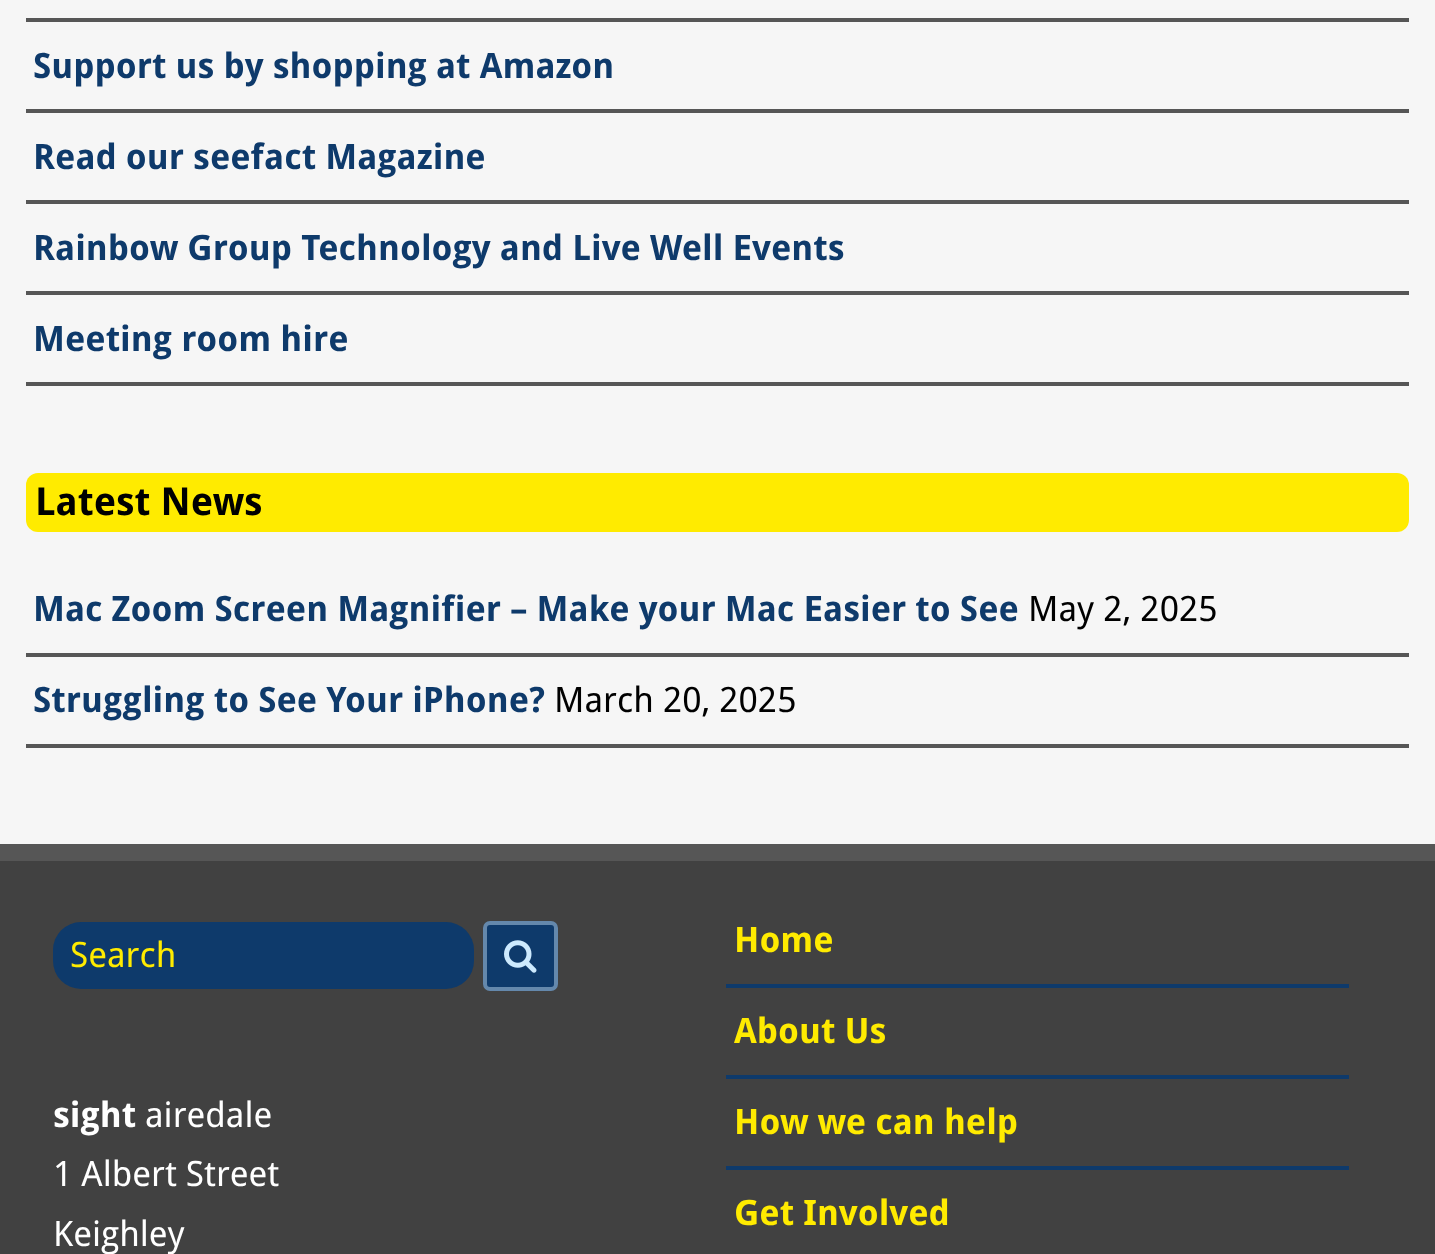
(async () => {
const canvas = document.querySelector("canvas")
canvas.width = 1435
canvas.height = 1254
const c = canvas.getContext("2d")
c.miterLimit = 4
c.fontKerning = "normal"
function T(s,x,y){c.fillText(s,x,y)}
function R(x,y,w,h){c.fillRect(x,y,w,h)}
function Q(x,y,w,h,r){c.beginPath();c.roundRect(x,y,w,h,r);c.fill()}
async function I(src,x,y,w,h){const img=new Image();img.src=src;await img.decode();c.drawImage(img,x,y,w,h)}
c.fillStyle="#f6f6f6"
R(0,0,1435,1254)
c.fillStyle="#565656"
R(0,844,1435,17)
R(26,18,1383,4)
R(26,109,1383,4)
c.font="bold 35px Droid Sans"
c.fillStyle="#0e3a6b"
T("Support us by shopping at Amazon",33,78)
c.fillStyle="#565656"
R(26,200,1383,4)
c.fillStyle="#0e3a6b"
T("Read our seefact Magazine",33,169)
c.fillStyle="#565656"
R(26,291,1383,4)
c.fillStyle="#0e3a6b"
T("Rainbow Group Technology and Live Well Events",33,260)
c.fillStyle="#565656"
R(26,382,1383,4)
c.fillStyle="#0e3a6b"
T("Meeting room hire",33,351)
c.fillStyle="#ffeb00"
Q(26,473,1383,59,12)
c.font="bold 38.5px Droid Sans"
c.fillStyle="#000"
T("Latest News",35,515)
c.fillStyle="#565656"
R(26,653,1383,4)
c.font="bold 35px Droid Sans"
c.fillStyle="#0e3a6b"
T("Mac Zoom Screen Magnifier – Make your Mac Easier to See",33,621)
c.font="35px Droid Sans"
c.fillStyle="#000"
T("May 2, 2025",1028,621)
c.fillStyle="#565656"
R(26,744,1383,4)
c.font="bold 35px Droid Sans"
c.fillStyle="#0e3a6b"
T("Struggling to See Your iPhone?",33,712)
c.font="35px Droid Sans"
c.fillStyle="#000"
T("March 20, 2025",554,712)
c.fillStyle="#414141"
R(0,861,1435,393)
c.fillStyle="#0e3a6b"
Q(53,922,421,67,28)
c.fillStyle="#ffeb00"
T("Search",70,967)
c.fillStyle="#0e3a6b"
c.beginPath()
c.roundRect(485,923,71,66,5)
c.fill()
c.strokeStyle="#6488ac"
c.lineWidth=4
c.stroke()
await I("1.png",504,940,33,33)
R(726,984,623,4)
c.font="bold 35px Droid Sans"
c.fillStyle="#ffeb00"
T("Home",734,952)
c.fillStyle="#0e3a6b"
R(726,1075,623,4)
c.fillStyle="#ffeb00"
T("About Us",734,1043)
c.fillStyle="#0e3a6b"
R(726,1166,623,4)
c.fillStyle="#ffeb00"
T("How we can help",734,1134)
T("Get Involved",734,1225)
c.fillStyle="#fff"
T("sight",53,1127)
c.font="35px Droid Sans"
T("airedale",145,1127)
T("1 Albert Street",53,1186)
T("Keighley",53,1246)
})()
